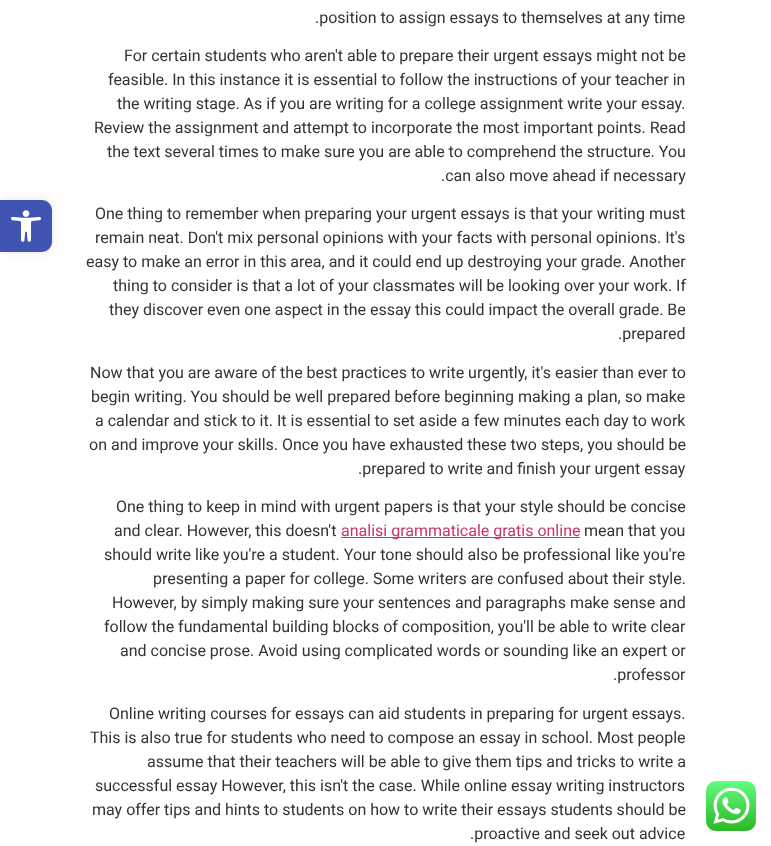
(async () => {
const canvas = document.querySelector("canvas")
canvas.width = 771
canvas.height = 846
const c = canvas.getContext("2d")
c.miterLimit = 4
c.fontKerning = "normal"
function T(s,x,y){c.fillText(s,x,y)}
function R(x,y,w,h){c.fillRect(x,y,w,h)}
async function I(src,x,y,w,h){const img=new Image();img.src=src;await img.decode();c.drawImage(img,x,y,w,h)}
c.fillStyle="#fff"
R(0,0,771,846)
c.fillStyle="#0000001a"
c.filter="blur(5px)"
c.beginPath()
c.roundRect(0,200,52,52,10)
c.fill()
c.filter="none"
c.fillStyle="#4054b2"
c.beginPath()
c.roundRect(0,200,52,52,[0,10,10,0])
c.fill()
await I("1.png",11,210,30,32)
c.font="16px Roboto"
c.fillStyle="#333"
T(".position to assign essays to themselves at any time",315,23)
T("For certain students who aren't able to prepare their urgent essays might not be",124,61)
T("feasible. In this instance it is essential to follow the instructions of your teacher in",108,85)
T("the writing stage. As if you are writing for a college assignment write your essay.",117,109)
T("Review the assignment and attempt to incorporate the most important points. Read",94,133)
T("the text several times to make sure you are able to comprehend the structure. You",107,157)
T(".can also move ahead if necessary",441,181)
T("One thing to remember when preparing your urgent essays is that your writing must",95,219)
T("remain neat. Don't mix personal opinions with your facts with personal opinions. It's",95,243)
T("easy to make an error in this area, and it could end up destroying your grade. Another",86,267)
T("thing to consider is that a lot of your classmates will be looking over your work. If",113,291)
T("they discover even one aspect in the essay this could impact the overall grade. Be",109,315)
T(".prepared",618,339)
T("Now that you are aware of the best practices to write urgently, it's easier than ever to",90,378)
T("begin writing. You should be well prepared before beginning making a plan, so make",91,402)
T("a calendar and stick to it. It is essential to set aside a few minutes each day to work",95,426)
T("on and improve your skills. Once you have exhausted these two steps, you should be",89,450)
T(".prepared to write and finish your urgent essay",358,474)
T("One thing to keep in mind with urgent papers is that your style should be concise",116,512)
T("and clear. However, this doesn't",114,536)
c.fillStyle="#c36"
R(341,537,239,1)
T("analisi grammaticale gratis online",341,536)
c.fillStyle="#333"
T("mean that you",584,536)
T("should write like you're a student. Your tone should also be professional like you're",104,560)
T("presenting a paper for college. Some writers are confused about their style.",153,584)
T("However, by simply making sure your sentences and paragraphs make sense and",112,608)
T("follow the fundamental building blocks of composition, you'll be able to write clear",104,632)
T("and concise prose. Avoid using complicated words or sounding like an expert or",120,656)
T(".professor",613,680)
T("Online writing courses for essays can aid students in preparing for urgent essays.",109,719)
T("This is also true for students who need to compose an essay in school. Most people",90,743)
T("assume that their teachers will be able to give them tips and tricks to write a",147,767)
T("successful essay However, this isn't the case. While online essay writing instructors",95,791)
T("may offer tips and hints to students on how to write their essays students should be",92,815)
T(".proactive and seek out advice",470,839)
await I("2.png",706,781,50,50)
})()
